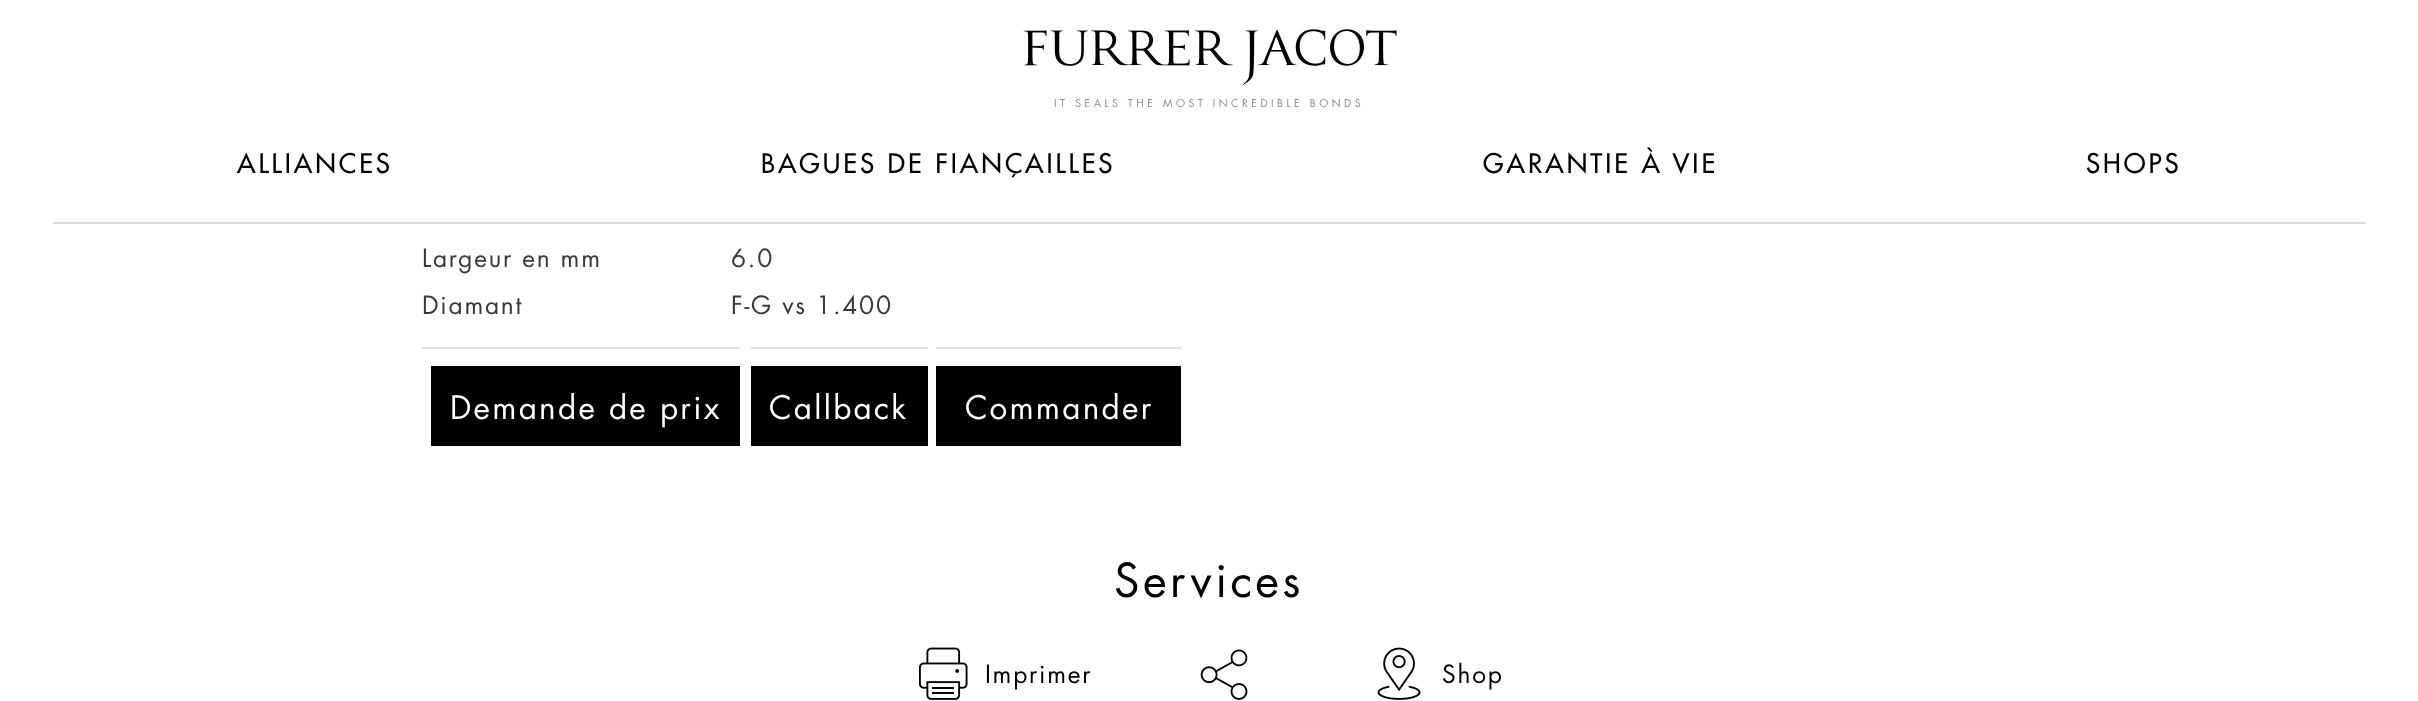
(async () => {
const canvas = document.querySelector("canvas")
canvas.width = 2418
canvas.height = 701
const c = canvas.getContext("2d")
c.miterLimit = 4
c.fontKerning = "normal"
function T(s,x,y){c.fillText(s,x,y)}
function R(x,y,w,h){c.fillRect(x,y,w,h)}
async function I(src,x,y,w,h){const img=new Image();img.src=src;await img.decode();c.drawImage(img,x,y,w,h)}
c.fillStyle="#fff"
R(0,0,2418,701)
await I("1.png",1023,29,374,56)
c.letterSpacing="3.5px"
c.font="10.5px Futura"
c.fillStyle="#8c8c8c"
T("IT SEALS THE MOST INCREDIBLE BONDS",1054,107)
c.fillStyle="#dbdbdb"
R(53,222,2313,2)
c.letterSpacing="3px"
c.font="500 26.25px Futura"
c.fillStyle="#000"
T("ALLIANCES",237,173)
T("BAGUES DE FIANÇAILLES",761,173)
T("GARANTIE À VIE",1483,173)
T("SHOPS",2086,173)
c.letterSpacing="1.75px"
c.font="24.5px Futura"
c.fillStyle="#39393a"
T("Largeur en mm",422,267)
T("6.0",731,267)
T("Diamant",422,314)
T("F-G vs 1.400",731,314)
c.fillStyle="#e0e0e0"
R(422,347,318,2)
c.fillStyle="#000"
R(431,366,309,80)
c.letterSpacing="2.25px"
c.font="31.5px Futura"
c.fillStyle="#fff"
T("Demande de prix",450,419)
c.fillStyle="#e0e0e0"
R(751,347,177,2)
c.fillStyle="#000"
R(751,366,177,80)
c.fillStyle="#fff"
T("Callback",769,419)
c.fillStyle="#e0e0e0"
R(936,347,245,2)
c.fillStyle="#000"
R(936,366,245,80)
c.fillStyle="#fff"
T("Commander",965,419)
c.letterSpacing="3.5px"
c.font="45.5px Futura"
c.fillStyle="#000"
T("Services",1114,597)
await I("2.png",919,647,49,53)
c.letterSpacing="1.75px"
c.font="24.5px Futura"
T("Imprimer",985,683)
await I("3.png",1200,649,48,51)
await I("4.png",1377,647,44,53)
T("Shop",1442,683)
})()
